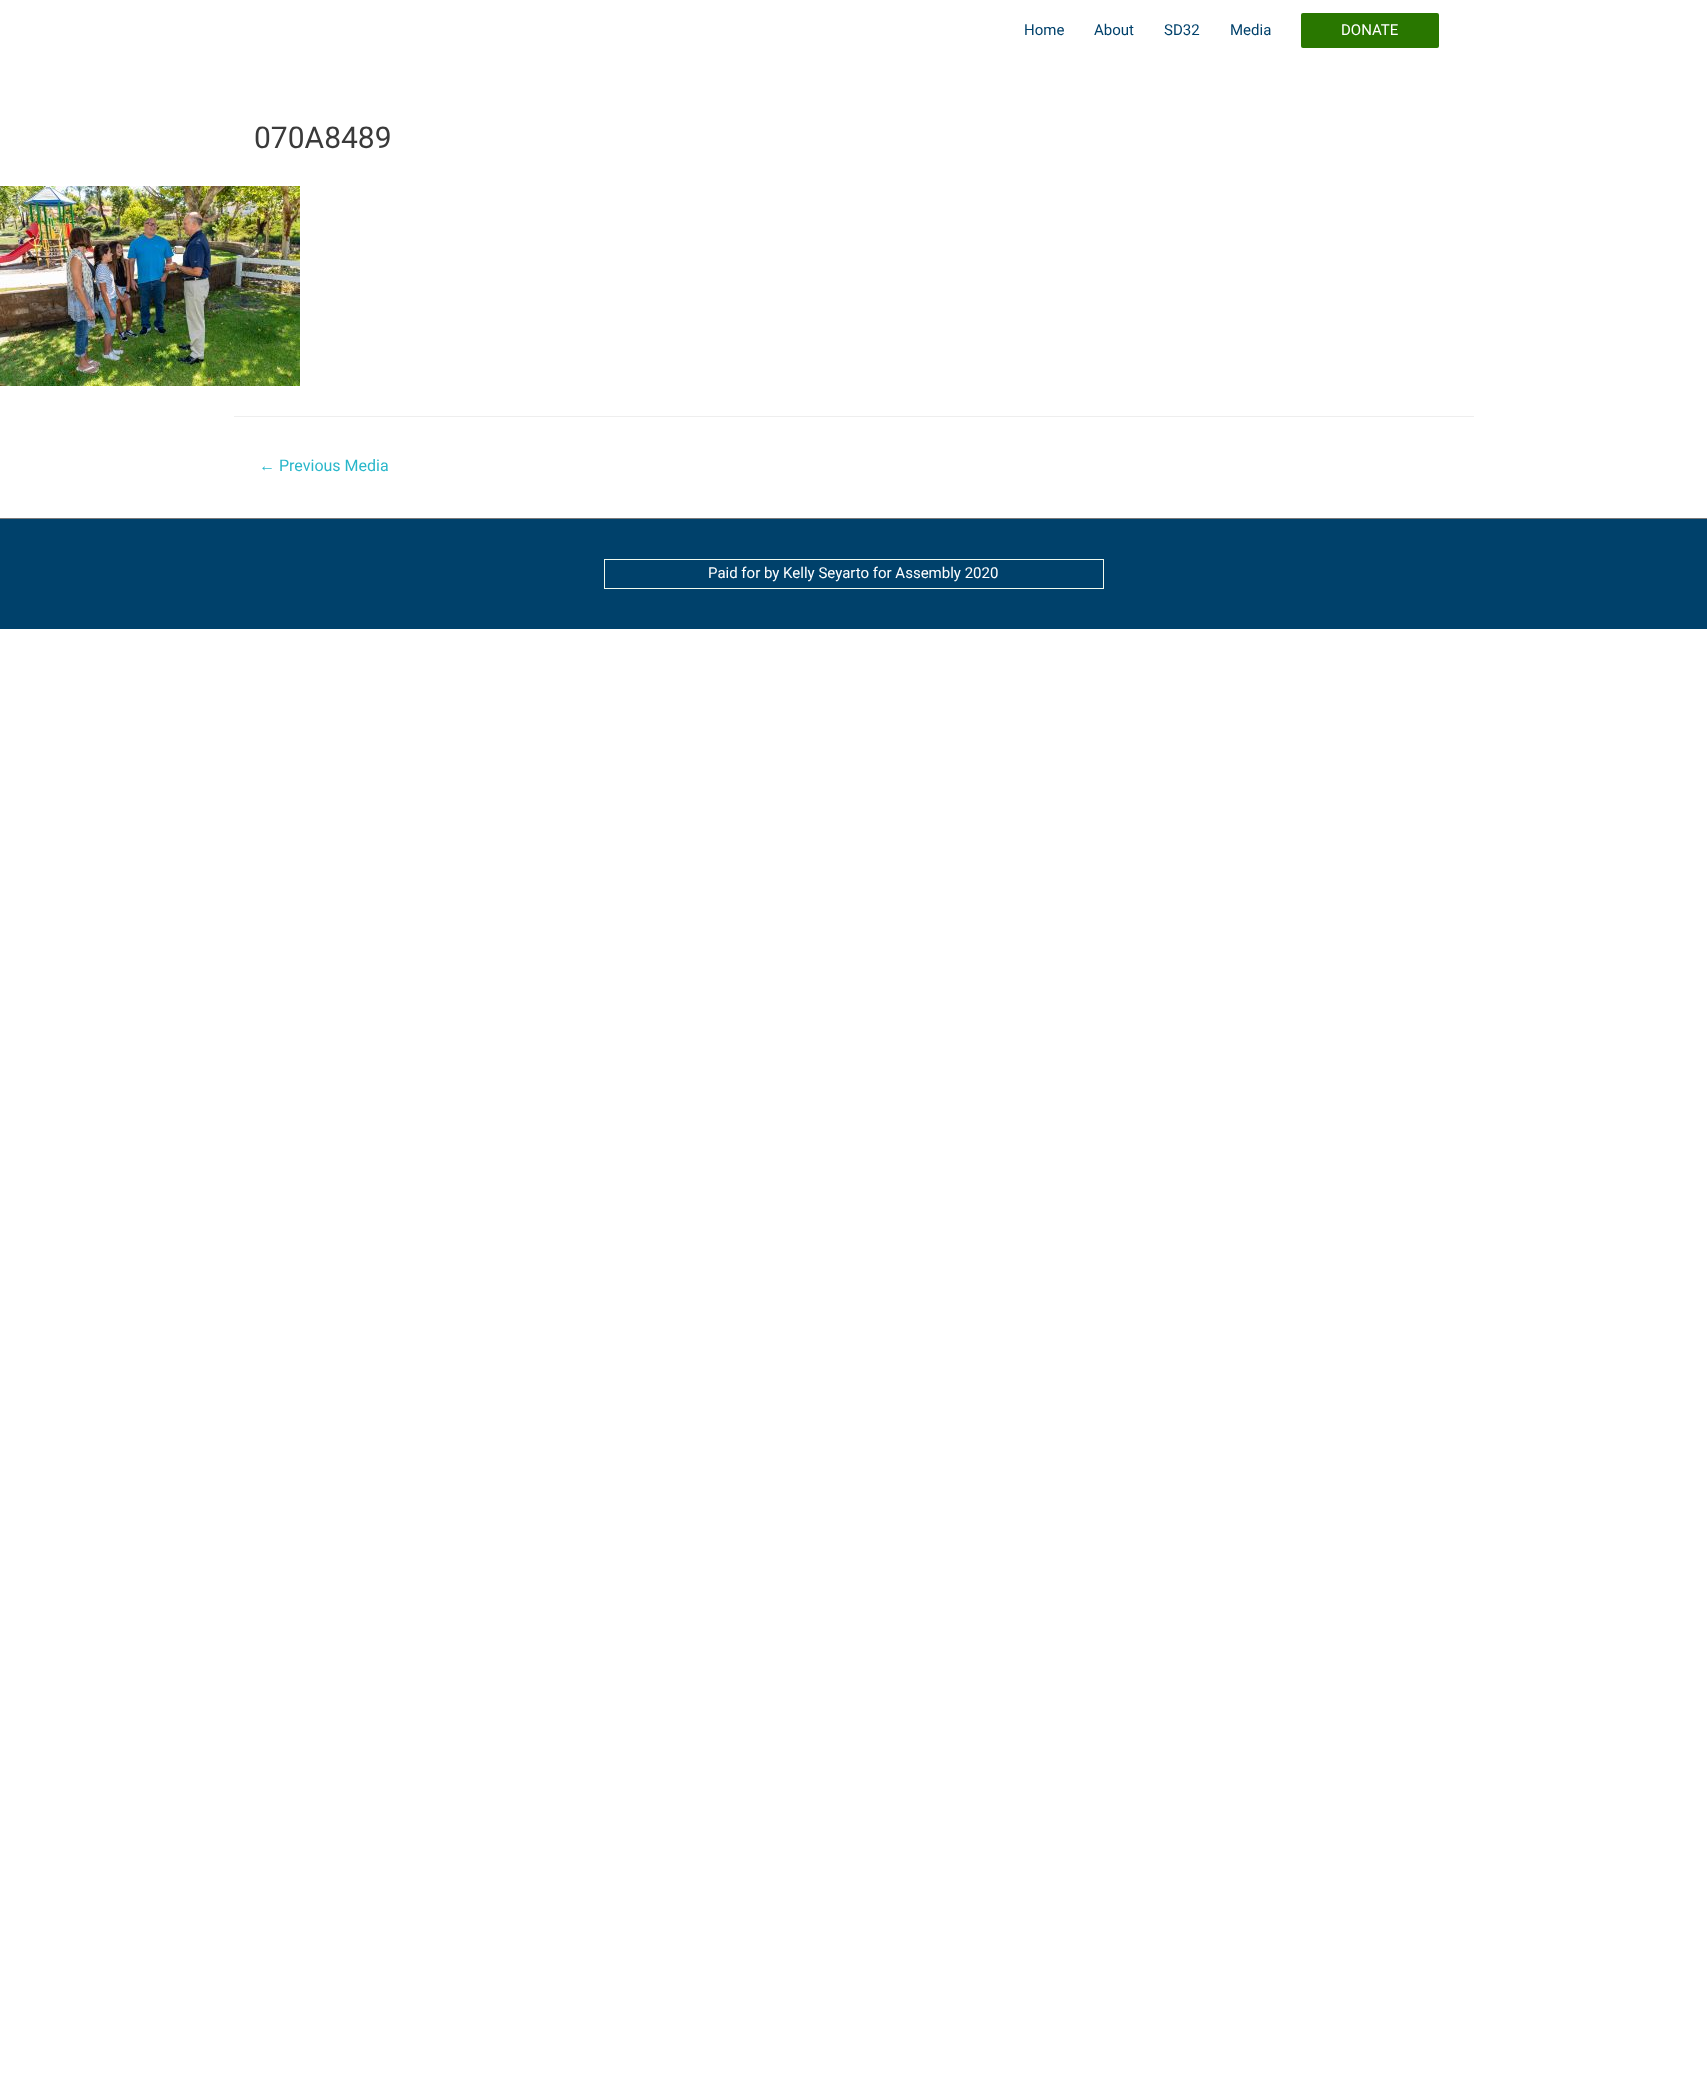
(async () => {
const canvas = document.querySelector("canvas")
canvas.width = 1707
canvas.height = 2077
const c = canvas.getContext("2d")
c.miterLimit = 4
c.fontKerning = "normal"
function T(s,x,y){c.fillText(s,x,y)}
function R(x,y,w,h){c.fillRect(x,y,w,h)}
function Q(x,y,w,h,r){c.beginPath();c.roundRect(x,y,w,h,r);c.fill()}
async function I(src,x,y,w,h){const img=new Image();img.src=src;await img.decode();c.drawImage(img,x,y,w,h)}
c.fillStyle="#fff"
R(0,0,1707,2077)
c.font="15px Roboto"
c.fillStyle="#00416b"
T("Home",1024,35)
T("About",1094,35)
T("SD32",1164,35)
T("Media",1230,35)
c.fillStyle="#297700"
Q(1301,13,138,35,2)
c.fillStyle="#fff"
T("DONATE",1341,35)
c.font="30px Roboto"
c.fillStyle="#3a3a3a"
T("070A8489",254,148)
await I("1.png",0,186,300,200)
c.fillStyle="#eee"
R(234,416,1240,1)
c.font="16px Liberation Sans"
c.fillStyle="#2ab7ca"
T("←",259,471)
c.font="16px Roboto"
T("Previous Media",279,471)
c.fillStyle="#7a7a7a"
R(0,518,1707,1)
c.fillStyle="#00416b"
R(0,519,1707,110)
c.strokeStyle="#f1faee"
c.strokeRect(604.5,559.5,499,29)
c.font="15px Roboto"
c.fillStyle="#fff"
T("Paid for by Kelly Seyarto for Assembly 2020",708,578)
})()
